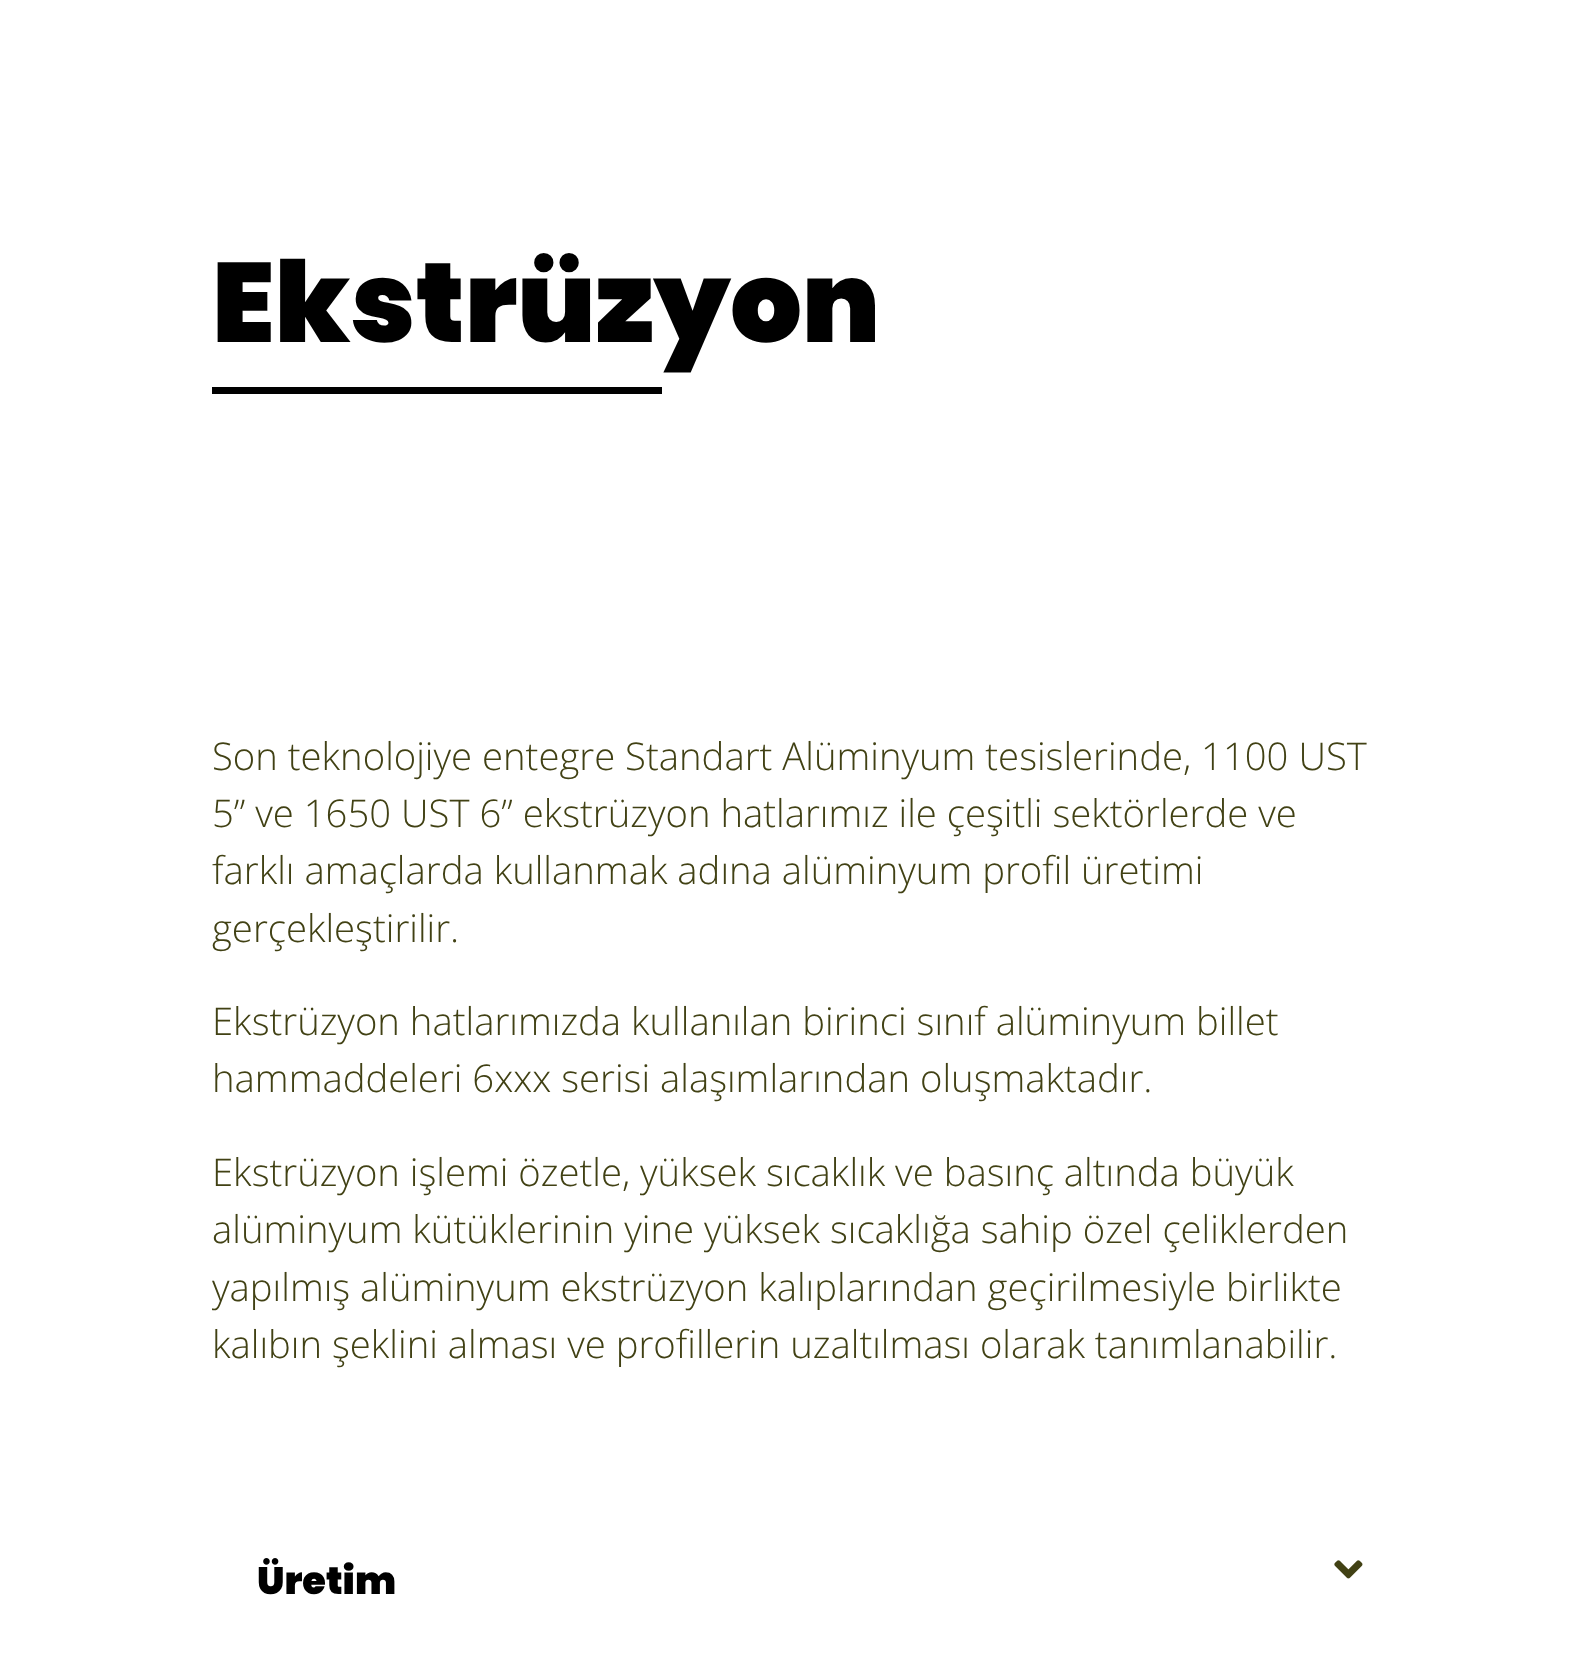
(async () => {
const canvas = document.querySelector("canvas")
canvas.width = 1582
canvas.height = 1662
const c = canvas.getContext("2d")
c.miterLimit = 4
c.fontKerning = "normal"
function T(s,x,y){c.fillText(s,x,y)}
function R(x,y,w,h){c.fillRect(x,y,w,h)}
async function I(src,x,y,w,h){const img=new Image();img.src=src;await img.decode();c.drawImage(img,x,y,w,h)}
c.fillStyle="#fff"
R(0,0,1582,1662)
c.font="900 112.5px Poppins"
c.fillStyle="#000"
T("Ekstrüzyon",212,342)
R(212,387,450,7)
c.font="300 38.25px Open Sans"
c.fillStyle="#414114"
T("Son teknolojiye entegre Standart Alüminyum tesislerinde, 1100 UST",212,770)
T("5” ve 1650 UST 6” ekstrüzyon hatlarımız ile çeşitli sektörlerde ve",212,827)
T("farklı amaçlarda kullanmak adına alüminyum profil üretimi",212,884)
T("gerçekleştirilir.",212,942)
T("Ekstrüzyon hatlarımızda kullanılan birinci sınıf alüminyum billet",212,1035)
T("hammaddeleri 6xxx serisi alaşımlarından oluşmaktadır.",212,1092)
T("Ekstrüzyon işlemi özetle, yüksek sıcaklık ve basınç altında büyük",212,1186)
T("alüminyum kütüklerinin yine yüksek sıcaklığa sahip özel çeliklerden",212,1243)
T("yapılmış alüminyum ekstrüzyon kalıplarından geçirilmesiyle birlikte",212,1301)
T("kalıbın şeklini alması ve profillerin uzaltılması olarak tanımlanabilir.",212,1358)
c.font="900 38.25px Poppins"
c.fillStyle="#000"
T("Üretim",257,1594)
await I("1.png",1334,1560,29,19)
})()
